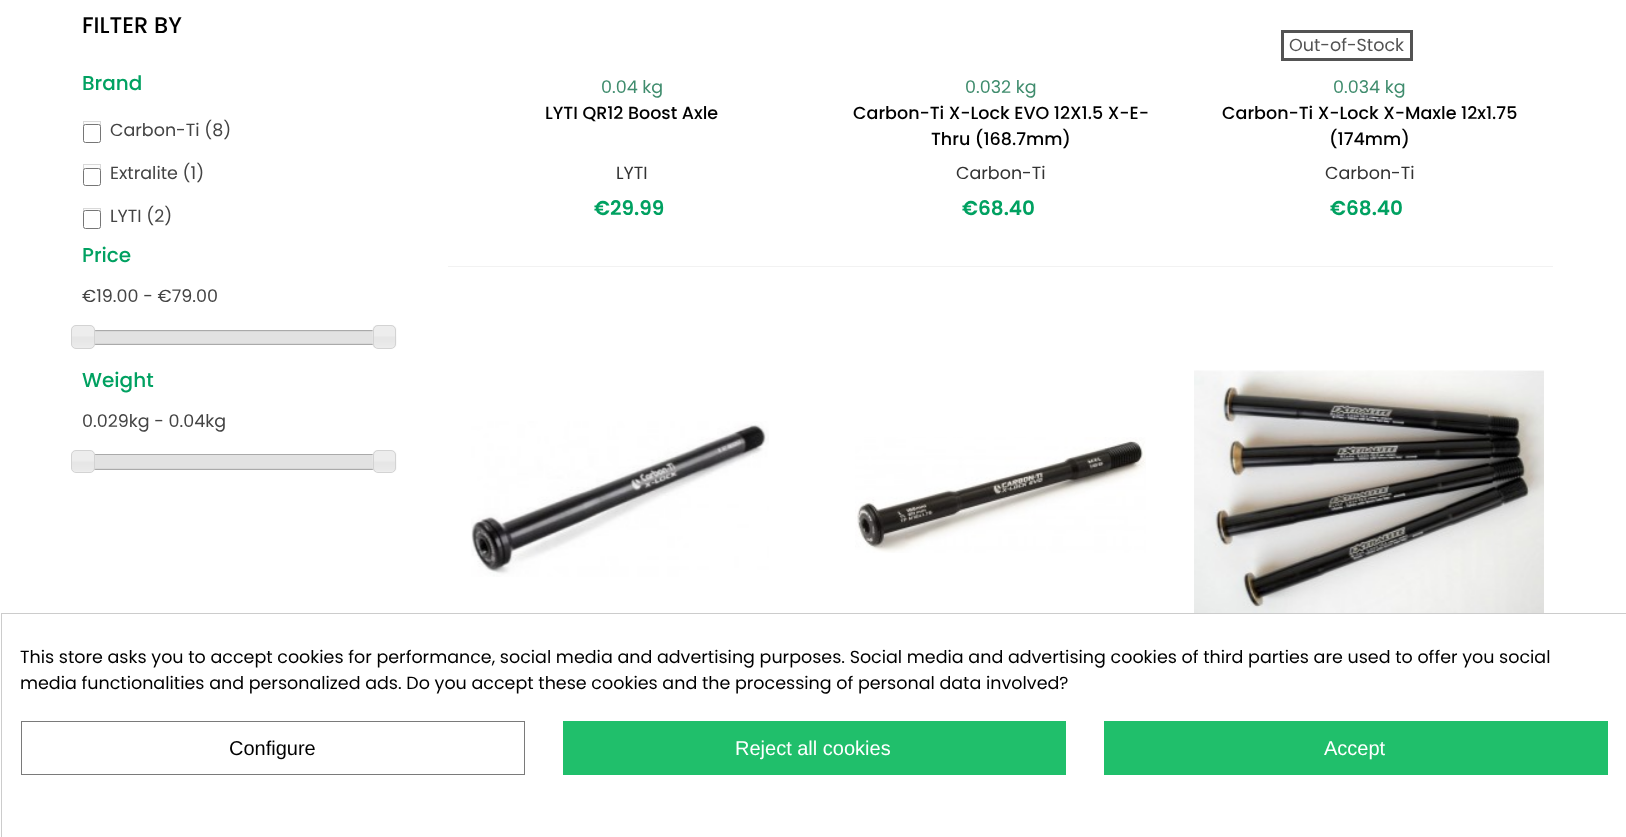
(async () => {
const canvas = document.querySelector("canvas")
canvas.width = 1626
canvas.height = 837
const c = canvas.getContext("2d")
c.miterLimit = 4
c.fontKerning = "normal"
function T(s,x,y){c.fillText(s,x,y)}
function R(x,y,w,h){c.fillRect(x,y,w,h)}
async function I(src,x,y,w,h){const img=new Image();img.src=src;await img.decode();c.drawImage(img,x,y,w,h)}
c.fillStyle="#fff"
R(0,0,1626,837)
c.font="500 22.5px Poppins"
c.fillStyle="#000"
T("FILTER BY",82,33)
c.font="500 20px Poppins"
c.fillStyle="#00a161"
T("Brand",82,90)
c.fillStyle="#fcfcfc"
R(84,122,16,3)
c.strokeStyle="#d9d9d9"
c.strokeRect(83.5,121.5,17,18)
c.fillStyle="#fff"
c.beginPath()
c.roundRect(83.5,124.5,17,18,2)
c.fill()
c.strokeStyle="#767676"
c.stroke()
c.font="17.5px Poppins"
c.fillStyle="#444"
T("Carbon-Ti (8)",110,136)
c.fillStyle="#fcfcfc"
R(84,165,16,4)
c.strokeStyle="#d9d9d9"
c.strokeRect(83.5,164.5,17,18)
c.fillStyle="#fff"
c.beginPath()
c.roundRect(83.5,168.5,17,17,2)
c.fill()
c.strokeStyle="#767676"
c.stroke()
c.fillStyle="#444"
T("Extralite (1)",110,179)
c.fillStyle="#fcfcfc"
R(84,209,16,2)
c.strokeStyle="#d9d9d9"
c.strokeRect(83.5,208.5,17,17)
c.fillStyle="#fff"
c.beginPath()
c.roundRect(83.5,210.5,17,18,2)
c.fill()
c.strokeStyle="#767676"
c.stroke()
c.fillStyle="#444"
T("LYTI (2)",110,222)
c.font="500 20px Poppins"
c.fillStyle="#00a161"
T("Price",82,262)
c.font="17.5px Poppins"
c.fillStyle="#444"
T("€19.00 - €79.00",82,302)
c.strokeStyle="#aaa"
c.strokeRect(83.5,330.5,302,14)
c.fillStyle="#ccc"
R(95,331,278,13)
await I("2.png",95,331,278,13)
await I("1.png",71,325,25,24)
c.beginPath()
c.roundRect(71.5,325.5,23,23,4.5)
c.strokeStyle="#d3d3d3"
c.stroke()
await I("3.png",372,325,25,23)
c.beginPath()
c.roundRect(373.5,325.5,22,23,4.5)
c.stroke()
c.font="500 20px Poppins"
c.fillStyle="#00a161"
T("Weight",82,387)
c.font="17.5px Poppins"
c.fillStyle="#444"
T("0.029kg - 0.04kg",82,427)
c.strokeStyle="#aaa"
c.strokeRect(83.5,454.5,302,15)
c.fillStyle="#ccc"
R(94,468,280,1)
await I("5.png",94,455,280,14)
await I("4.png",71,450,25,22)
c.beginPath()
c.roundRect(71.5,450.5,23,22,4.5)
c.strokeStyle="#d3d3d3"
c.stroke()
await I("6.png",372,450,25,22)
c.beginPath()
c.roundRect(373.5,450.5,22,22,4.5)
c.stroke()
c.fillStyle="#3f8c6d"
T("0.04 kg",601,93)
c.font="500 17.5px Poppins"
c.fillStyle="#000"
T("LYTI QR12 Boost Axle",545,119)
c.font="17.5px Poppins"
c.fillStyle="#333"
T("LYTI",616,179)
c.font="600 20px Poppins"
c.fillStyle="#00a161"
T("€29.99",594,215)
c.font="17.5px Poppins"
c.fillStyle="#3f8c6d"
T("0.032 kg",965,93)
c.font="500 17.5px Poppins"
c.fillStyle="#000"
T("Carbon-Ti X-Lock EVO 12X1.5 X-E-",853,119)
T("Thru (168.7mm)",931,145)
c.font="17.5px Poppins"
c.fillStyle="#333"
T("Carbon-Ti",956,179)
c.font="600 20px Poppins"
c.fillStyle="#00a161"
T("€68.40",962,215)
c.strokeStyle="#535353"
c.lineWidth=3
c.strokeRect(1282.5,31.5,129,28)
c.font="17.5px Poppins"
c.fillStyle="#535353"
T("Out-of-Stock",1289,51)
c.fillStyle="#3f8c6d"
T("0.034 kg",1333,93)
c.font="500 17.5px Poppins"
c.fillStyle="#000"
T("Carbon-Ti X-Lock X-Maxle 12x1.75",1222,119)
T("(174mm)",1329,145)
c.font="17.5px Poppins"
c.fillStyle="#333"
T("Carbon-Ti",1325,179)
c.font="600 20px Poppins"
c.fillStyle="#00a161"
T("€68.40",1330,215)
c.fillStyle="#f2f2f2"
R(448,266,1105,1)
await I("7.png",471,421,298,156)
await I("8.png",855,437,291,116)
await I("9.png",1194,370,350,243)
c.strokeStyle="#ccc"
c.lineWidth=1
c.strokeRect(1.5,613.5,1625,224)
c.font="17.5px Poppins"
c.fillStyle="#000"
T("This store asks you to accept cookies for performance, social media and advertising purposes. Social media and advertising cookies of third parties are used to offer you social",20,663)
T("media functionalities and personalized ads. Do you accept these cookies and the processing of personal data involved?",20,689)
c.strokeStyle="#7a7a7a"
c.strokeRect(21.5,721.5,503,53)
c.font="20px Liberation Sans"
T("Configure",229,755)
c.fillStyle="#20bf6b"
R(563,721,503,54)
c.fillStyle="#fff"
T("Reject all cookies",735,755)
c.fillStyle="#20bf6b"
R(1104,721,504,54)
c.fillStyle="#fff"
T("Accept",1324,755)
})()
